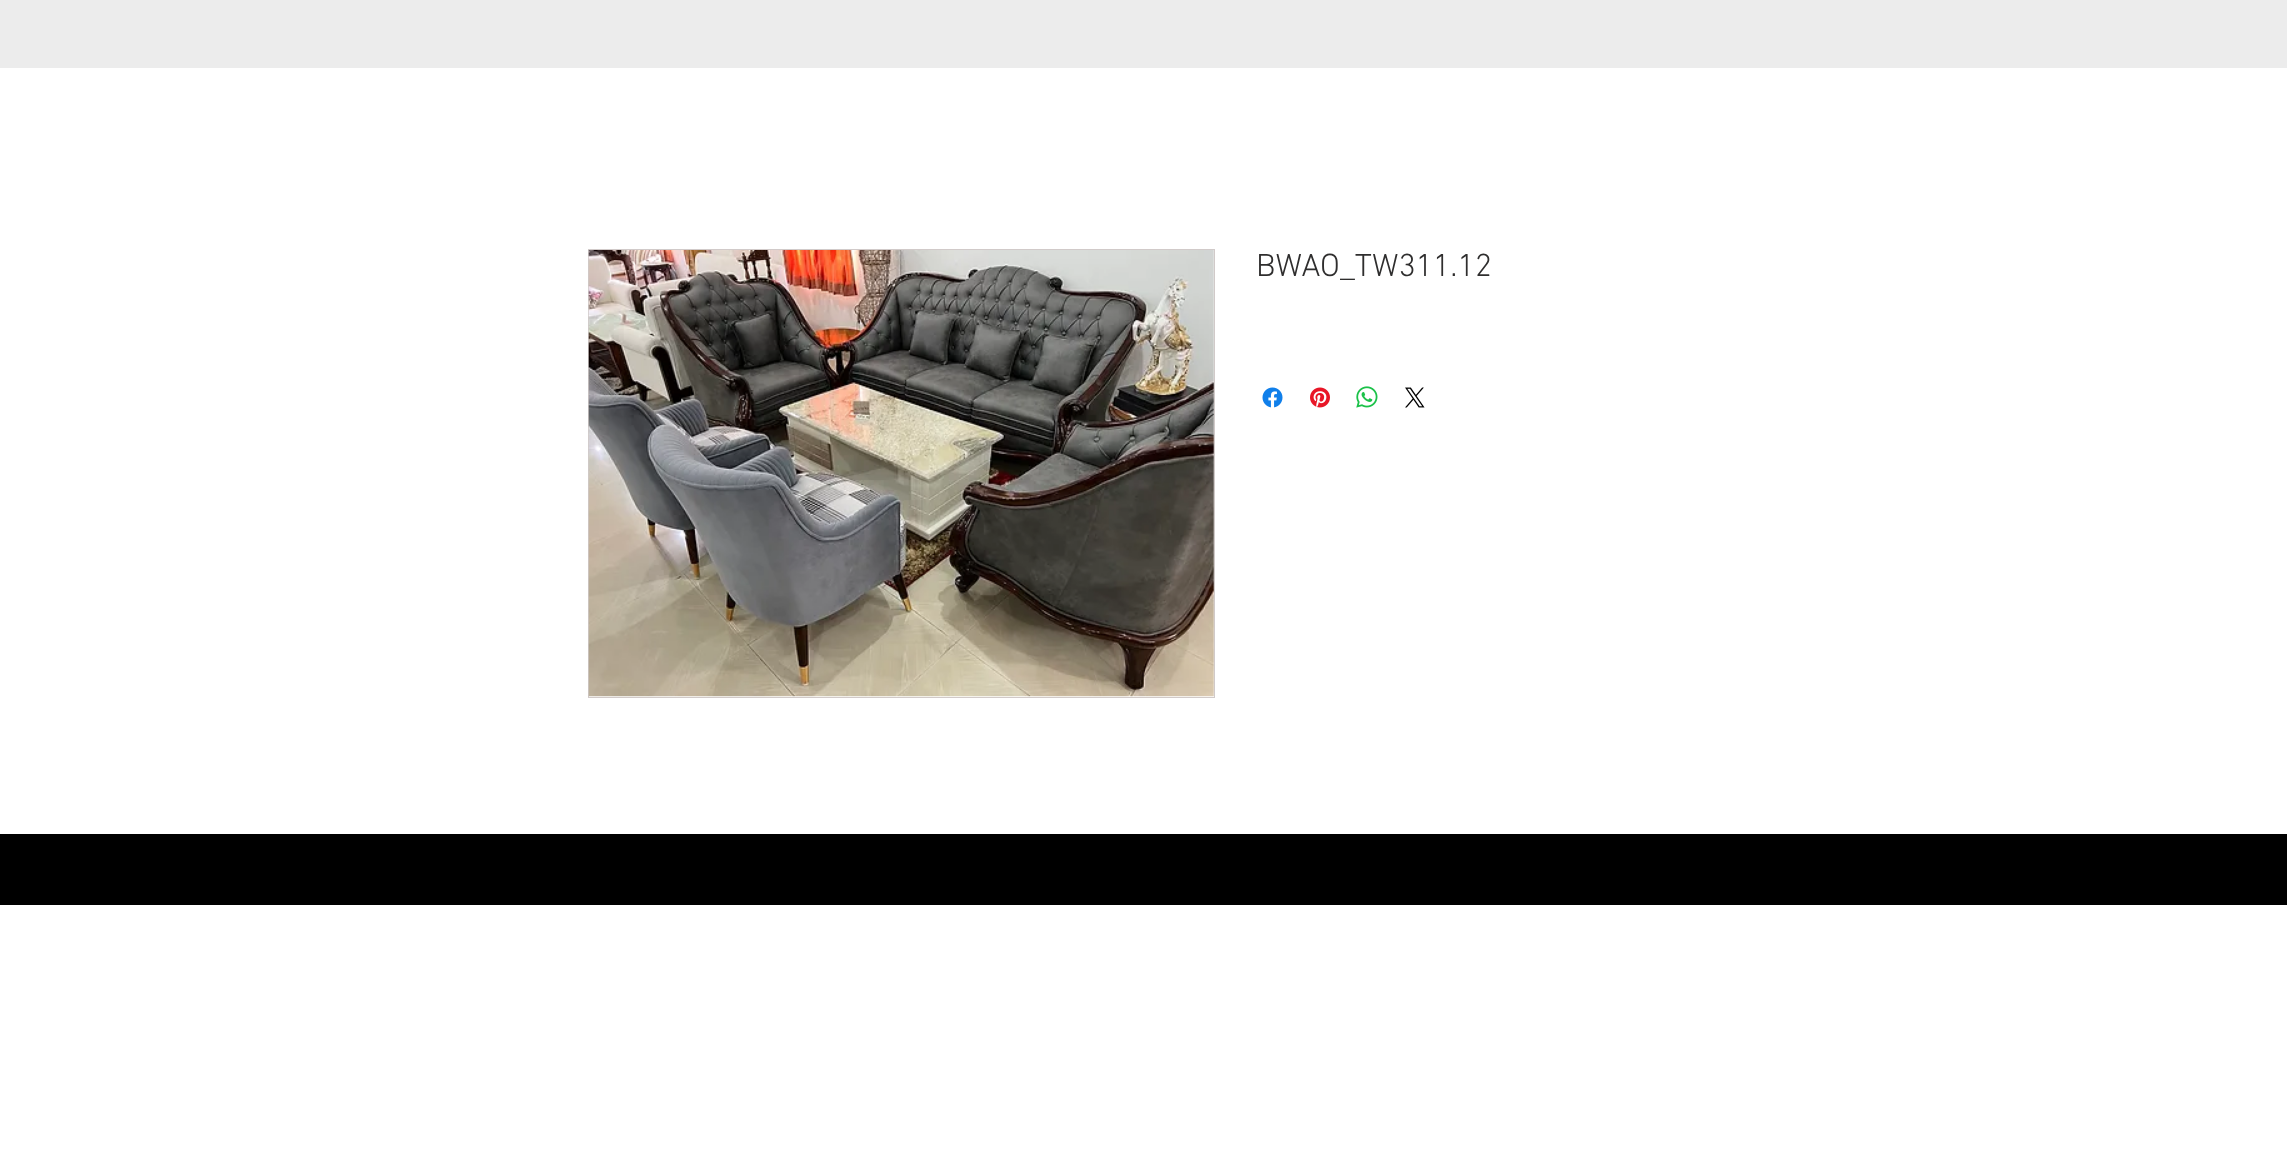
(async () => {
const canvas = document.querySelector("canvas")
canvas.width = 2287
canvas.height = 1152
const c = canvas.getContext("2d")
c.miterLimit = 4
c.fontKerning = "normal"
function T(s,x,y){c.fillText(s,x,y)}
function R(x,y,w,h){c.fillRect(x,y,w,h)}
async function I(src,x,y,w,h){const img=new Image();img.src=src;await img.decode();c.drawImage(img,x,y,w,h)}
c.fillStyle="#fff"
R(0,0,2287,1152)
c.fillStyle="#ececec"
R(0,0,2287,68)
c.strokeStyle="#d1cac9"
c.strokeRect(588.5,249.5,626,448)
await I("1.png",588,250,626,447)
c.font="300 32.5px 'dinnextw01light'"
c.fillStyle="#2f2e2e"
T("BWAO_TW311.12",1256,276)
await I("2.png",1262,387,21,21)
await I("3.png",1310,387,20,21)
await I("4.png",1356,386,22,22)
await I("5.png",1405,387,20,21)
c.fillStyle="#000"
R(0,834,2287,71)
})()
